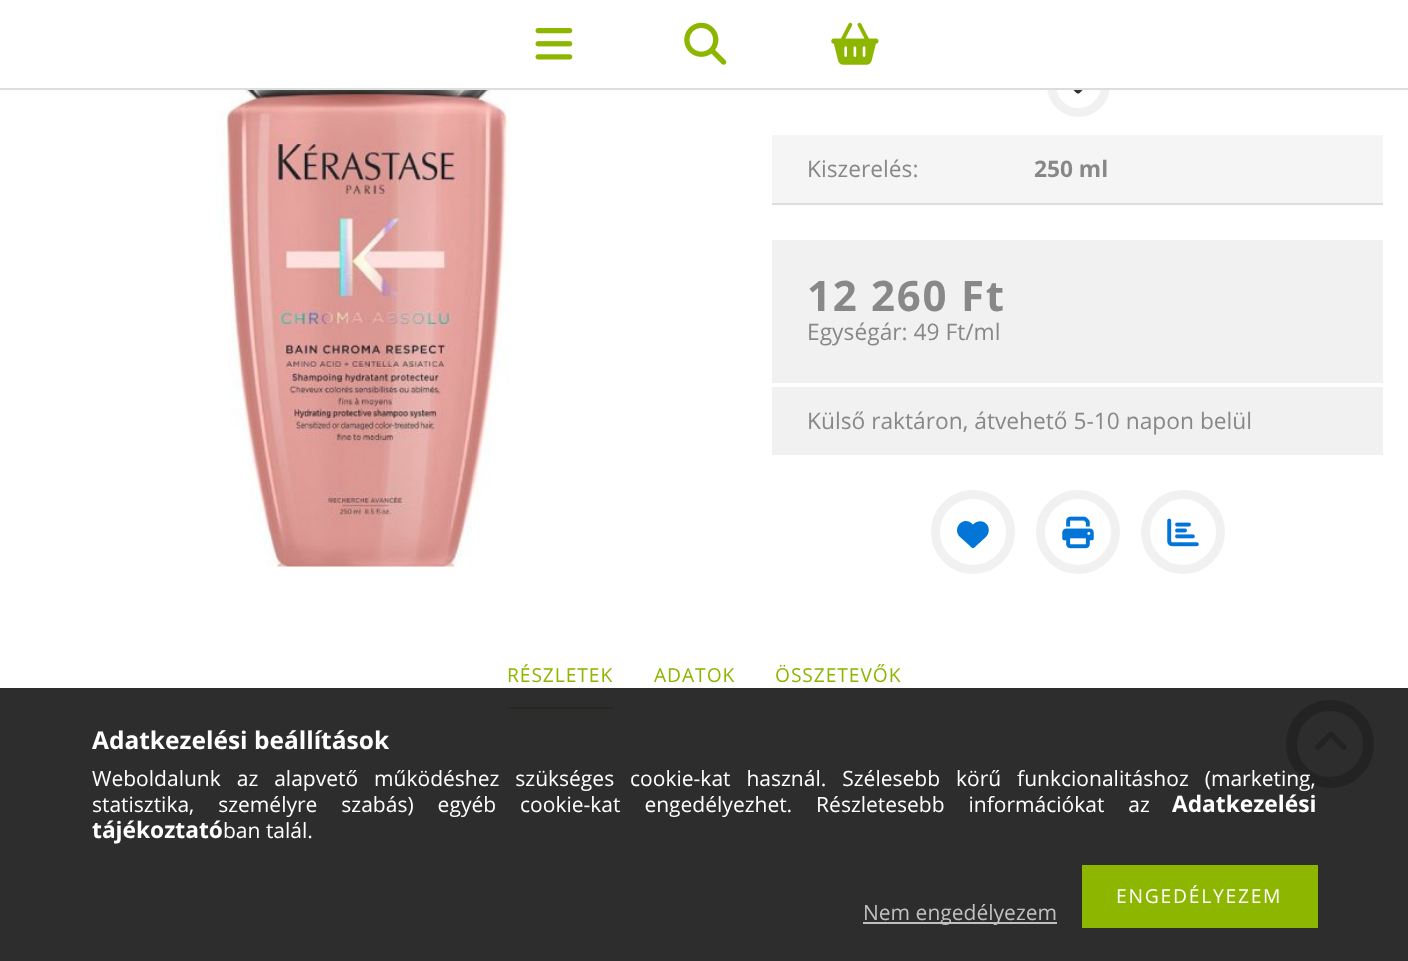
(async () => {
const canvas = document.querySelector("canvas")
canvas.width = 1408
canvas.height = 961
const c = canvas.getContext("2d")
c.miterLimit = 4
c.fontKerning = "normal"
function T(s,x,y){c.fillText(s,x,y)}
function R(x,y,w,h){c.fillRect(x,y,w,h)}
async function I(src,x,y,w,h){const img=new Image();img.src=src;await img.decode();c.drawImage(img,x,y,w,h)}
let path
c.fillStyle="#fff"
R(0,0,1408,961)
c.fillStyle="#2d2d2d"
R(0,688,1408,273)
c.beginPath()
c.arc(1078.5,85.5,27,0,7)
c.strokeStyle="#f1f1f1"
c.lineWidth=9
c.stroke()
c.fillStyle="#fff"
R(1047,54,63,34)
c.fillStyle="#ddd"
R(0,88,1408,2)
await I("1.png",535,28,38,32)
await I("2.png",684,22,43,43)
await I("3.png",831,22,48,43)
await I("4.png",215,90,295,477)
await I("5.png",1073,90,10,4)
R(772,203,611,2)
c.fillStyle="#f5f5f5"
R(772,135,611,68)
c.font="22.75px Open Sans"
c.fillStyle="#888"
T("Kiszerelés:",807,177)
c.font="bold 22.75px Open Sans"
T("250 ml",1034,177)
c.fillStyle="#f1f1f1"
R(772,240,611,143)
c.letterSpacing="1.75px"
c.font="bold 42px Open Sans"
c.fillStyle="#888"
T("12 260 Ft",807,311)
c.letterSpacing="0px"
c.font="22.75px Open Sans"
T("Egységár: 49 Ft/ml",807,340)
c.fillStyle="#f1f1f1"
R(772,387,611,68)
c.fillStyle="#888"
T("Külső raktáron, átvehető 5-10 napon belül",807,429)
c.beginPath()
c.arc(973,532,37.5,0,7)
c.stroke()
c.fillStyle="#0275d8"
path = new Path2D("M960 537l9.5 8.5c3.5 3.5 3.5 3.5 7 0l4-3.5c2.5-2.5 6-5 7.5-8c4-9.5-7-17.5-15-9.5c-9.5-10-21.5 4-13 12.5z")
c.fill(path)
c.beginPath()
c.arc(1078,532,37.5,0,7)
c.stroke()
await I("6.png",1062,516,32,33)
c.beginPath()
c.arc(1183,532,37.5,0,7)
c.stroke()
await I("7.png",1167,518,32,29)
c.fillStyle="#272920"
R(508,707,105,2)
c.letterSpacing="0.9px"
c.font="19.25px Open Sans"
c.fillStyle="#8db600"
T("RÉSZLETEK",507,682)
T("ADATOK",654,682)
T("ÖSSZETEVŐK",775,682)
c.letterSpacing="0px"
c.font="bold 24.5px Open Sans"
c.fillStyle="#fff"
T("Adatkezelési beállítások",92,749)
c.beginPath()
c.arc(1330,744,38.5,0,7)
c.strokeStyle="#232323"
c.lineWidth=11
c.stroke()
c.wordSpacing="10.5px"
c.font="21px Open Sans"
T("Weboldalunk az alapvető működéshez szükséges cookie-kat használ. Szélesebb körű funkcionalitáshoz (marketing,",92,786)
c.wordSpacing="18.5px"
T("statisztika, személyre szabás) egyéb cookie-kat engedélyezhet. Részletesebb információkat az",92,812)
c.wordSpacing="0px"
c.font="bold 22.75px Open Sans"
T("Adatkezelési",1172,812)
T("tájékoztató",92,838)
c.font="21px Open Sans"
T("ban talál.",223,838)
c.fillStyle="#8db600"
R(1082,865,236,63)
c.letterSpacing="1.75px"
c.font="19.25px Open Sans"
c.fillStyle="#fff"
T("ENGEDÉLYEZEM",1116,903)
c.fillStyle="#c0c0c0"
R(863,922,194,2)
c.letterSpacing="0px"
c.font="21px Open Sans"
T("Nem engedélyezem",863,920)
await I("8.png",1315,731,32,19)
})()
